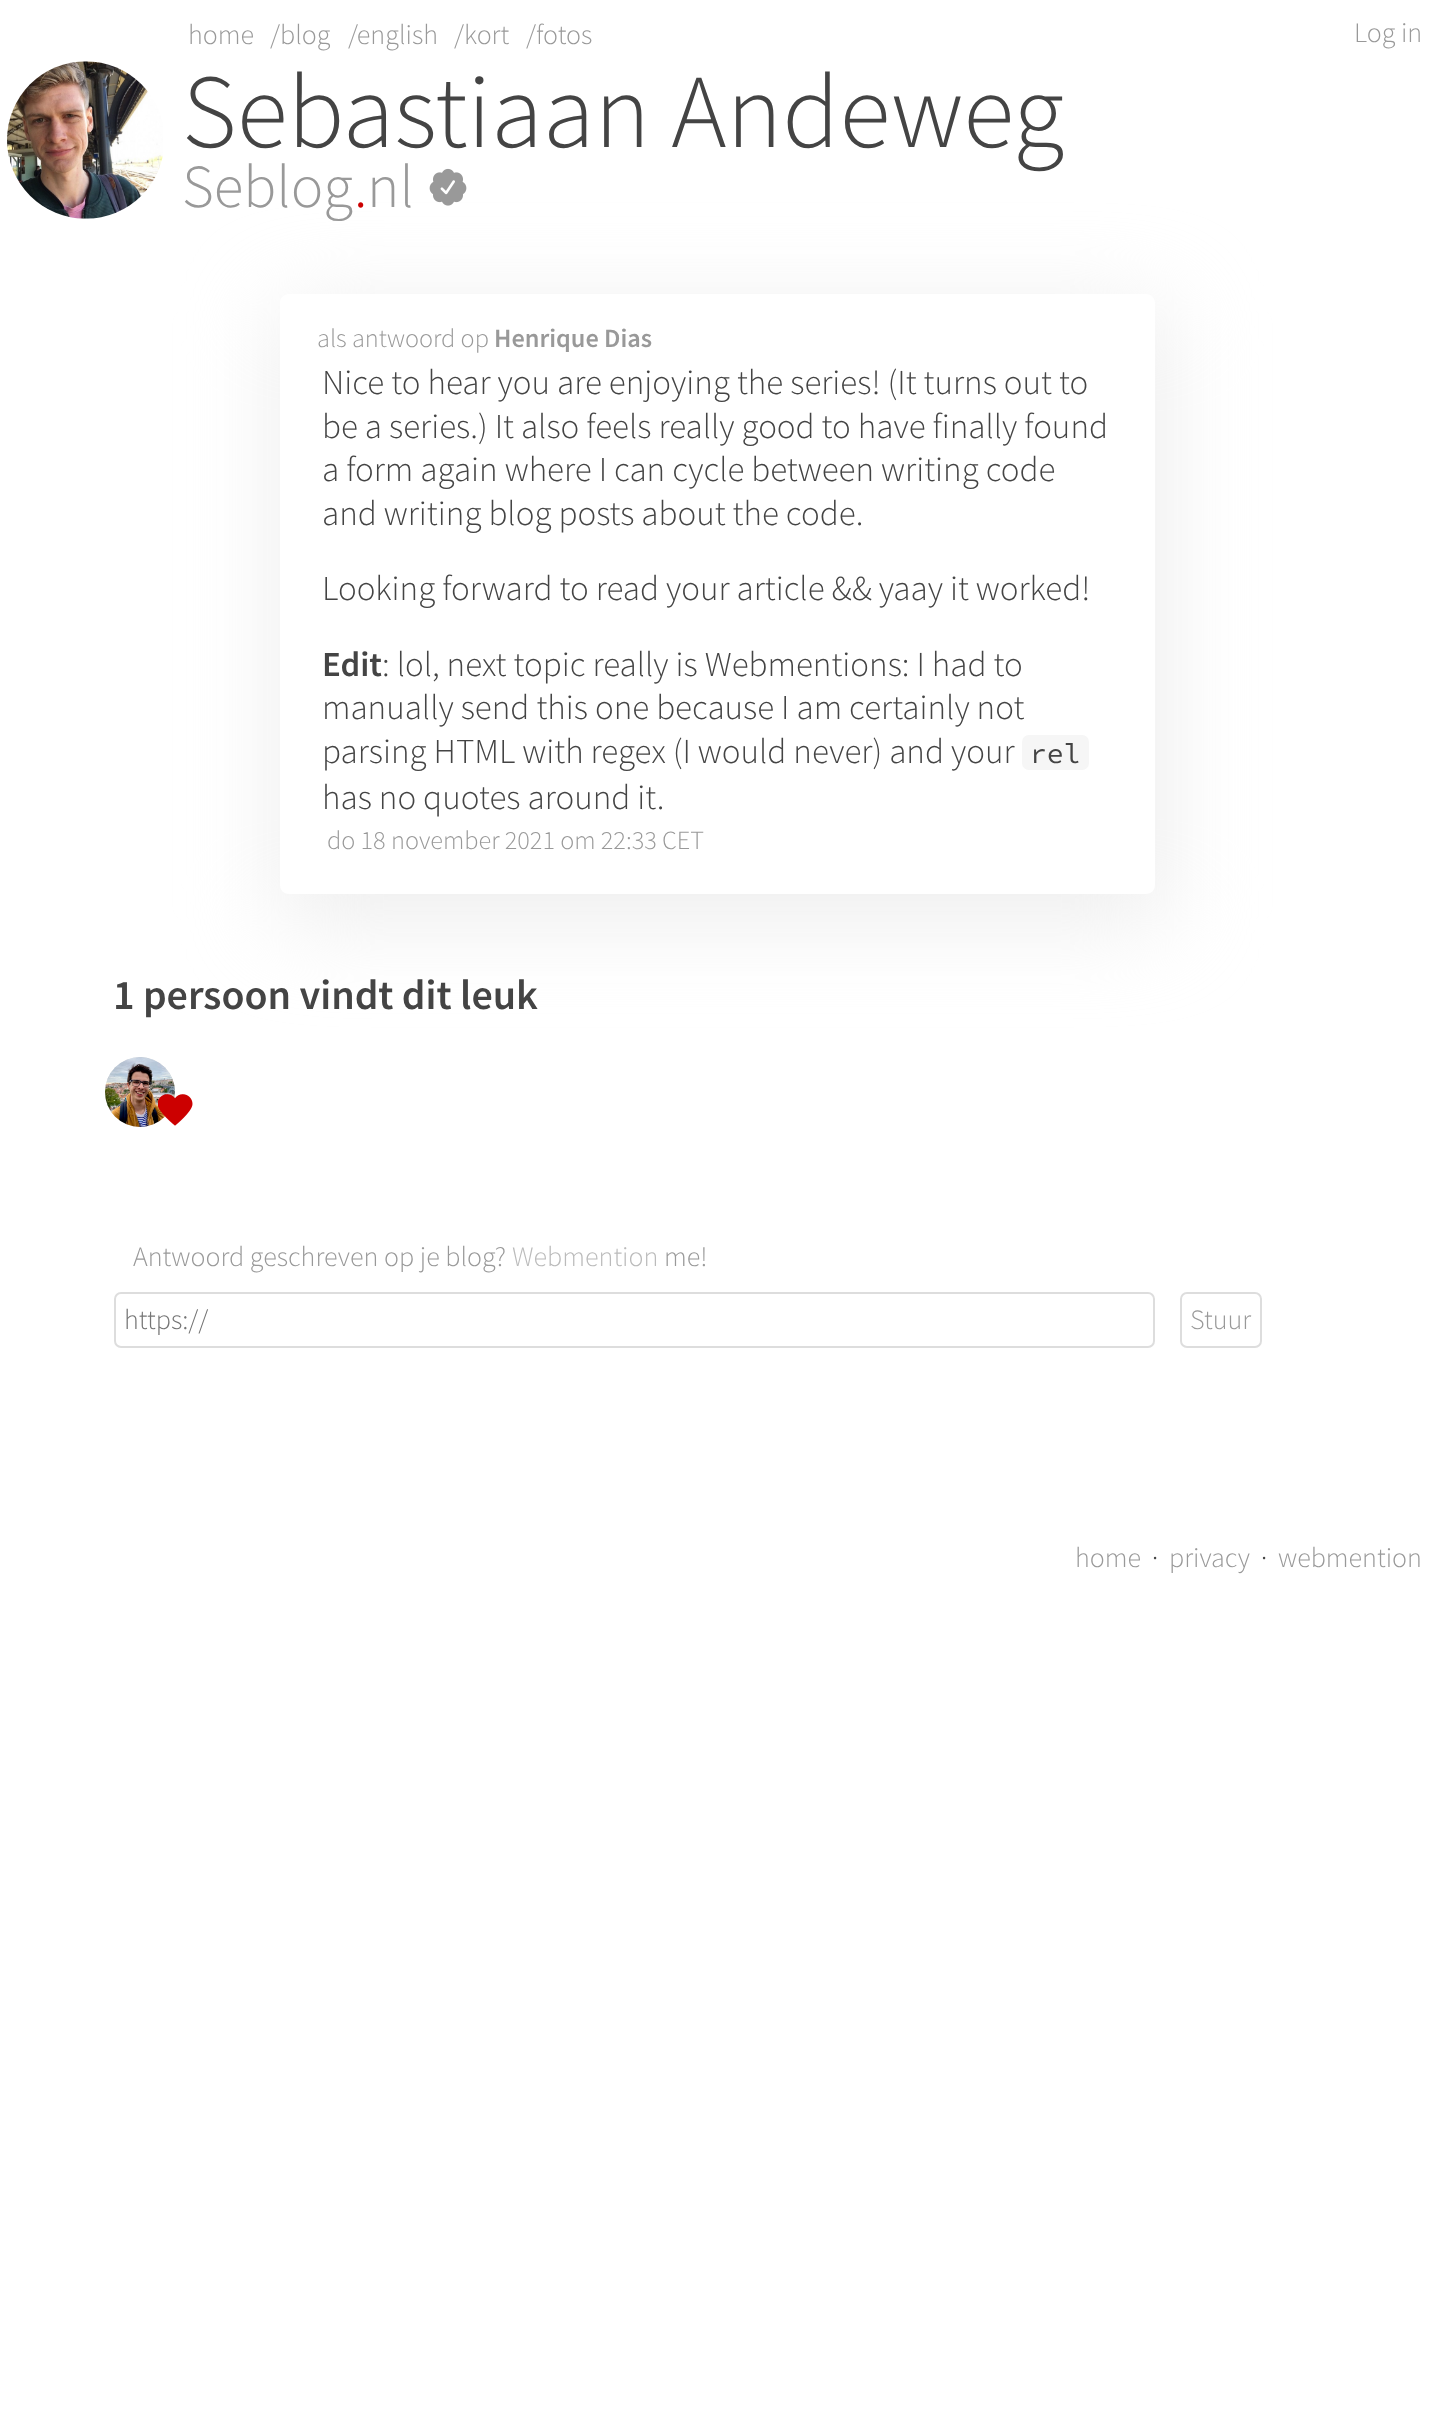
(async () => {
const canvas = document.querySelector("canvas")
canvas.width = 1434
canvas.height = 2431
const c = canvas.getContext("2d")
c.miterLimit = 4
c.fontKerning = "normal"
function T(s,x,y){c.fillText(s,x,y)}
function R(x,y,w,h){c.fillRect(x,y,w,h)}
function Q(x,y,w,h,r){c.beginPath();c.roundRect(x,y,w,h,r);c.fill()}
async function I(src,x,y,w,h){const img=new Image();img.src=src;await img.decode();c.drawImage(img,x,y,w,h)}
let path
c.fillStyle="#fff"
R(0,0,1434,2431)
c.font="300 28px Source Sans Pro"
c.fillStyle="#999"
T("home",188,44)
T("/blog",270,44)
T("/english",348,44)
T("/kort",454,44)
T("/fotos",526,44)
T("Log in",1354,42)
await I("1.png",7,61,156,158)
c.font="300 105px Source Sans Pro"
c.fillStyle="#444"
T("Sebastiaan Andeweg",182,147)
c.font="300 61px Source Sans Pro"
c.fillStyle="#999"
T("Seblog",182,207)
c.fillStyle="#c00"
T(".",354,207)
c.fillStyle="#999"
T("nl",367,207)
await I("2.png",429,168,38,38)
c.save()
path = new Path2D("M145 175h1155v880h-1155zm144 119h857c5 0 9 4 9 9v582c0 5-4 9-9 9h-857c-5 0-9-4-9-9v-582c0-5 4-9 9-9z")
c.clip(path,"evenodd")
c.fillStyle="#eee"
c.filter="blur(44px)"
c.beginPath()
c.roundRect(278,308,889,614,16)
c.fill()
c.filter="none"
c.restore()
c.font="300 26.25px Source Sans Pro"
T("als antwoord op",317,347)
c.font="600 26.25px Source Sans Pro"
T("Henrique Dias",494,347)
c.font="300 35px Source Sans Pro"
c.fillStyle="#444"
T("Nice to hear you are enjoying the series! (It turns out to",322,394)
T("be a series.) It also feels really good to have finally found",322,438)
T("a form again where I can cycle between writing code",322,481)
T("and writing blog posts about the code.",322,525)
T("Looking forward to read your article && yaay it worked!",322,600)
c.font="600 35px Source Sans Pro"
T("Edit",322,676)
c.font="300 35px Source Sans Pro"
T(": lol, next topic really is Webmentions: I had to",382,676)
T("manually send this one because I am certainly not",322,719)
T("parsing HTML with regex (I would never) and your",322,763)
c.fillStyle="#f6f6f6"
Q(1022,735,67,35,7)
c.font="28px Source Code Pro"
c.fillStyle="#444"
T("rel",1030,763)
c.font="300 35px Source Sans Pro"
T("has no quotes around it.",322,809)
c.font="300 26.25px Source Sans Pro"
c.fillStyle="#999"
T("do 18 november 2021 om 22:33 CET",327,849)
c.font="600 42px Source Sans Pro"
c.fillStyle="#444"
T("1 persoon vindt dit leuk",113,1009)
c.fillStyle="#ddd"
c.beginPath()
c.arc(140,1092,35,0,7)
c.fill()
await I("3.png",105,1057,70,70)
await I("4.png",158,1094,35,32)
c.font="300 28px Source Sans Pro"
c.fillStyle="#999"
T("Antwoord geschreven op je blog?",133,1266)
c.fillStyle="#bbb"
T("Webmention",512,1266)
c.fillStyle="#999"
T("me!",664,1266)
c.beginPath()
c.roundRect(115,1293,1039,54,6)
c.strokeStyle="#ddd"
c.lineWidth=2
c.stroke()
c.fillStyle="#757575"
T("https://",124,1329)
c.beginPath()
c.roundRect(1181,1293,80,54,6)
c.stroke()
c.fillStyle="#999"
T("Stuur",1190,1329)
T("home",1075,1567)
c.fillStyle="#444"
T("·",1152,1567)
c.fillStyle="#999"
T("privacy",1169,1567)
c.fillStyle="#444"
T("·",1261,1567)
c.fillStyle="#999"
T("webmention",1278,1567)
})()
